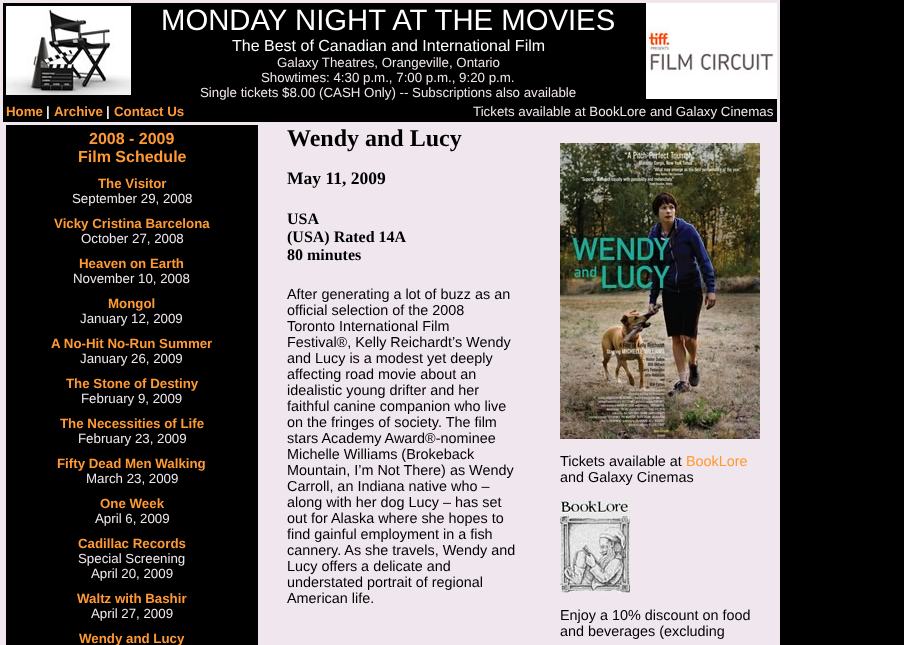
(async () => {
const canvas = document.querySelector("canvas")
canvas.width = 904
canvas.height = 645
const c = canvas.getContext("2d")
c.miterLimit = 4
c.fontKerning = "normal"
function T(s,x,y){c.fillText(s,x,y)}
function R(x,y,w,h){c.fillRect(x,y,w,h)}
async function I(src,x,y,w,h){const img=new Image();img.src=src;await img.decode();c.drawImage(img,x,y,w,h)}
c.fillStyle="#000"
R(0,0,904,645)
c.fillStyle="#f0e7ee"
R(0,0,780,645)
c.fillStyle="#000"
R(3,3,774,119)
await I("1.png",3,3,128,95)
c.font="29.3px Liberation Sans"
c.fillStyle="#fff"
T("MONDAY NIGHT AT THE MOVIES",161,30)
c.font="16px Liberation Sans"
T("The Best of Canadian and International Film",232,51)
c.font="13.3px Liberation Sans"
c.fillStyle="#f0e7ee"
T("Galaxy Theatres, Orangeville, Ontario",277,67)
T("Showtimes: 4:30 p.m., 7:00 p.m., 9:20 p.m.",261,82)
T("Single tickets $8.00 (CASH Only) -- Subscriptions also available",200,97)
await I("2.png",646,3,131,96)
c.font="bold 13.3px Liberation Sans"
c.fillStyle="#f93"
T("Home",6,116)
c.fillStyle="#f0e7ee"
T("|",46,116)
c.fillStyle="#f93"
T("Archive",54,116)
c.fillStyle="#f0e7ee"
T("|",106,116)
c.fillStyle="#f93"
T("Contact Us",114,116)
c.font="13.3px Liberation Sans"
c.fillStyle="#f0e7ee"
T("Tickets available at BookLore and Galaxy Cinemas",473,116)
c.fillStyle="#000"
R(6,125,252,520)
c.font="bold 16px Liberation Sans"
c.fillStyle="#f93"
T("2008 - 2009",89,144)
T("Film Schedule",78,162)
c.font="bold 13.3px Liberation Sans"
T("The Visitor",98,188)
c.font="13.3px Liberation Sans"
c.fillStyle="#f0e7ee"
T("September 29, 2008",72,203)
c.font="bold 13.3px Liberation Sans"
c.fillStyle="#f93"
T("Vicky Cristina Barcelona",54,228)
c.font="13.3px Liberation Sans"
c.fillStyle="#f0e7ee"
T("October 27, 2008",81,243)
c.font="bold 13.3px Liberation Sans"
c.fillStyle="#f93"
T("Heaven on Earth",79,268)
c.font="13.3px Liberation Sans"
c.fillStyle="#f0e7ee"
T("November 10, 2008",73,283)
c.font="bold 13.3px Liberation Sans"
c.fillStyle="#f93"
T("Mongol",108,308)
c.font="13.3px Liberation Sans"
c.fillStyle="#f0e7ee"
T("January 12, 2009",80,323)
c.font="bold 13.3px Liberation Sans"
c.fillStyle="#f93"
T("A No-Hit No-Run Summer",51,348)
c.font="13.3px Liberation Sans"
c.fillStyle="#f0e7ee"
T("January 26, 2009",80,363)
c.font="bold 13.3px Liberation Sans"
c.fillStyle="#f93"
T("The Stone of Destiny",66,388)
c.font="13.3px Liberation Sans"
c.fillStyle="#f0e7ee"
T("February 9, 2009",81,403)
c.font="bold 13.3px Liberation Sans"
c.fillStyle="#f93"
T("The Necessities of Life",60,428)
c.font="13.3px Liberation Sans"
c.fillStyle="#f0e7ee"
T("February 23, 2009",78,443)
c.font="bold 13.3px Liberation Sans"
c.fillStyle="#f93"
T("Fifty Dead Men Walking",57,468)
c.font="13.3px Liberation Sans"
c.fillStyle="#f0e7ee"
T("March 23, 2009",86,483)
c.font="bold 13.3px Liberation Sans"
c.fillStyle="#f93"
T("One Week",100,508)
c.font="13.3px Liberation Sans"
c.fillStyle="#f0e7ee"
T("April 6, 2009",95,523)
c.font="bold 13.3px Liberation Sans"
c.fillStyle="#f93"
T("Cadillac Records",78,548)
c.font="13.3px Liberation Sans"
c.fillStyle="#f0e7ee"
T("Special Screening",78,563)
T("April 20, 2009",91,578)
c.font="bold 13.3px Liberation Sans"
c.fillStyle="#f93"
T("Waltz with Bashir",77,603)
c.font="13.3px Liberation Sans"
c.fillStyle="#f0e7ee"
T("April 27, 2009",91,618)
c.font="bold 13.3px Liberation Sans"
c.fillStyle="#f93"
T("Wendy and Lucy",79,643)
c.font="bold 24px Liberation Serif"
c.fillStyle="#000"
T("Wendy and Lucy",287,146)
c.font="bold 17.5px Liberation Serif"
T("May 11, 2009",287,184)
c.font="bold 16px Liberation Serif"
T("USA",287,224)
T("(USA) Rated 14A",287,242)
T("80 minutes",287,260)
c.font="14.4px Liberation Sans"
T("After generating a lot of buzz as an",287,299)
T("official selection of the 2008",287,315)
T("Toronto International Film",287,331)
T("Festival®, Kelly Reichardt’s Wendy",287,347)
T("and Lucy is a modest yet deeply",287,363)
T("affecting road movie about an",287,379)
T("idealistic young drifter and her",287,395)
T("faithful canine companion who live",287,411)
T("on the fringes of society. The film",287,427)
T("stars Academy Award®-nominee",287,443)
T("Michelle Williams (Brokeback",287,459)
T("Mountain, I’m Not There) as Wendy",287,475)
T("Carroll, an Indiana native who –",287,491)
T("along with her dog Lucy – has set",287,507)
T("out for Alaska where she hopes to",287,523)
T("find gainful employment in a fish",287,539)
T("cannery. As she travels, Wendy and",287,555)
T("Lucy offers a delicate and",287,571)
T("understated portrait of regional",287,587)
T("American life.",287,603)
await I("3.png",560,143,200,296)
T("Tickets available at",560,466)
c.fillStyle="#f93"
T("BookLore",686,466)
c.fillStyle="#000"
T("and Galaxy Cinemas",560,482)
await I("4.png",560,500,70,93)
T("Enjoy a 10% discount on food",560,620)
T("and beverages (excluding",560,636)
})()
